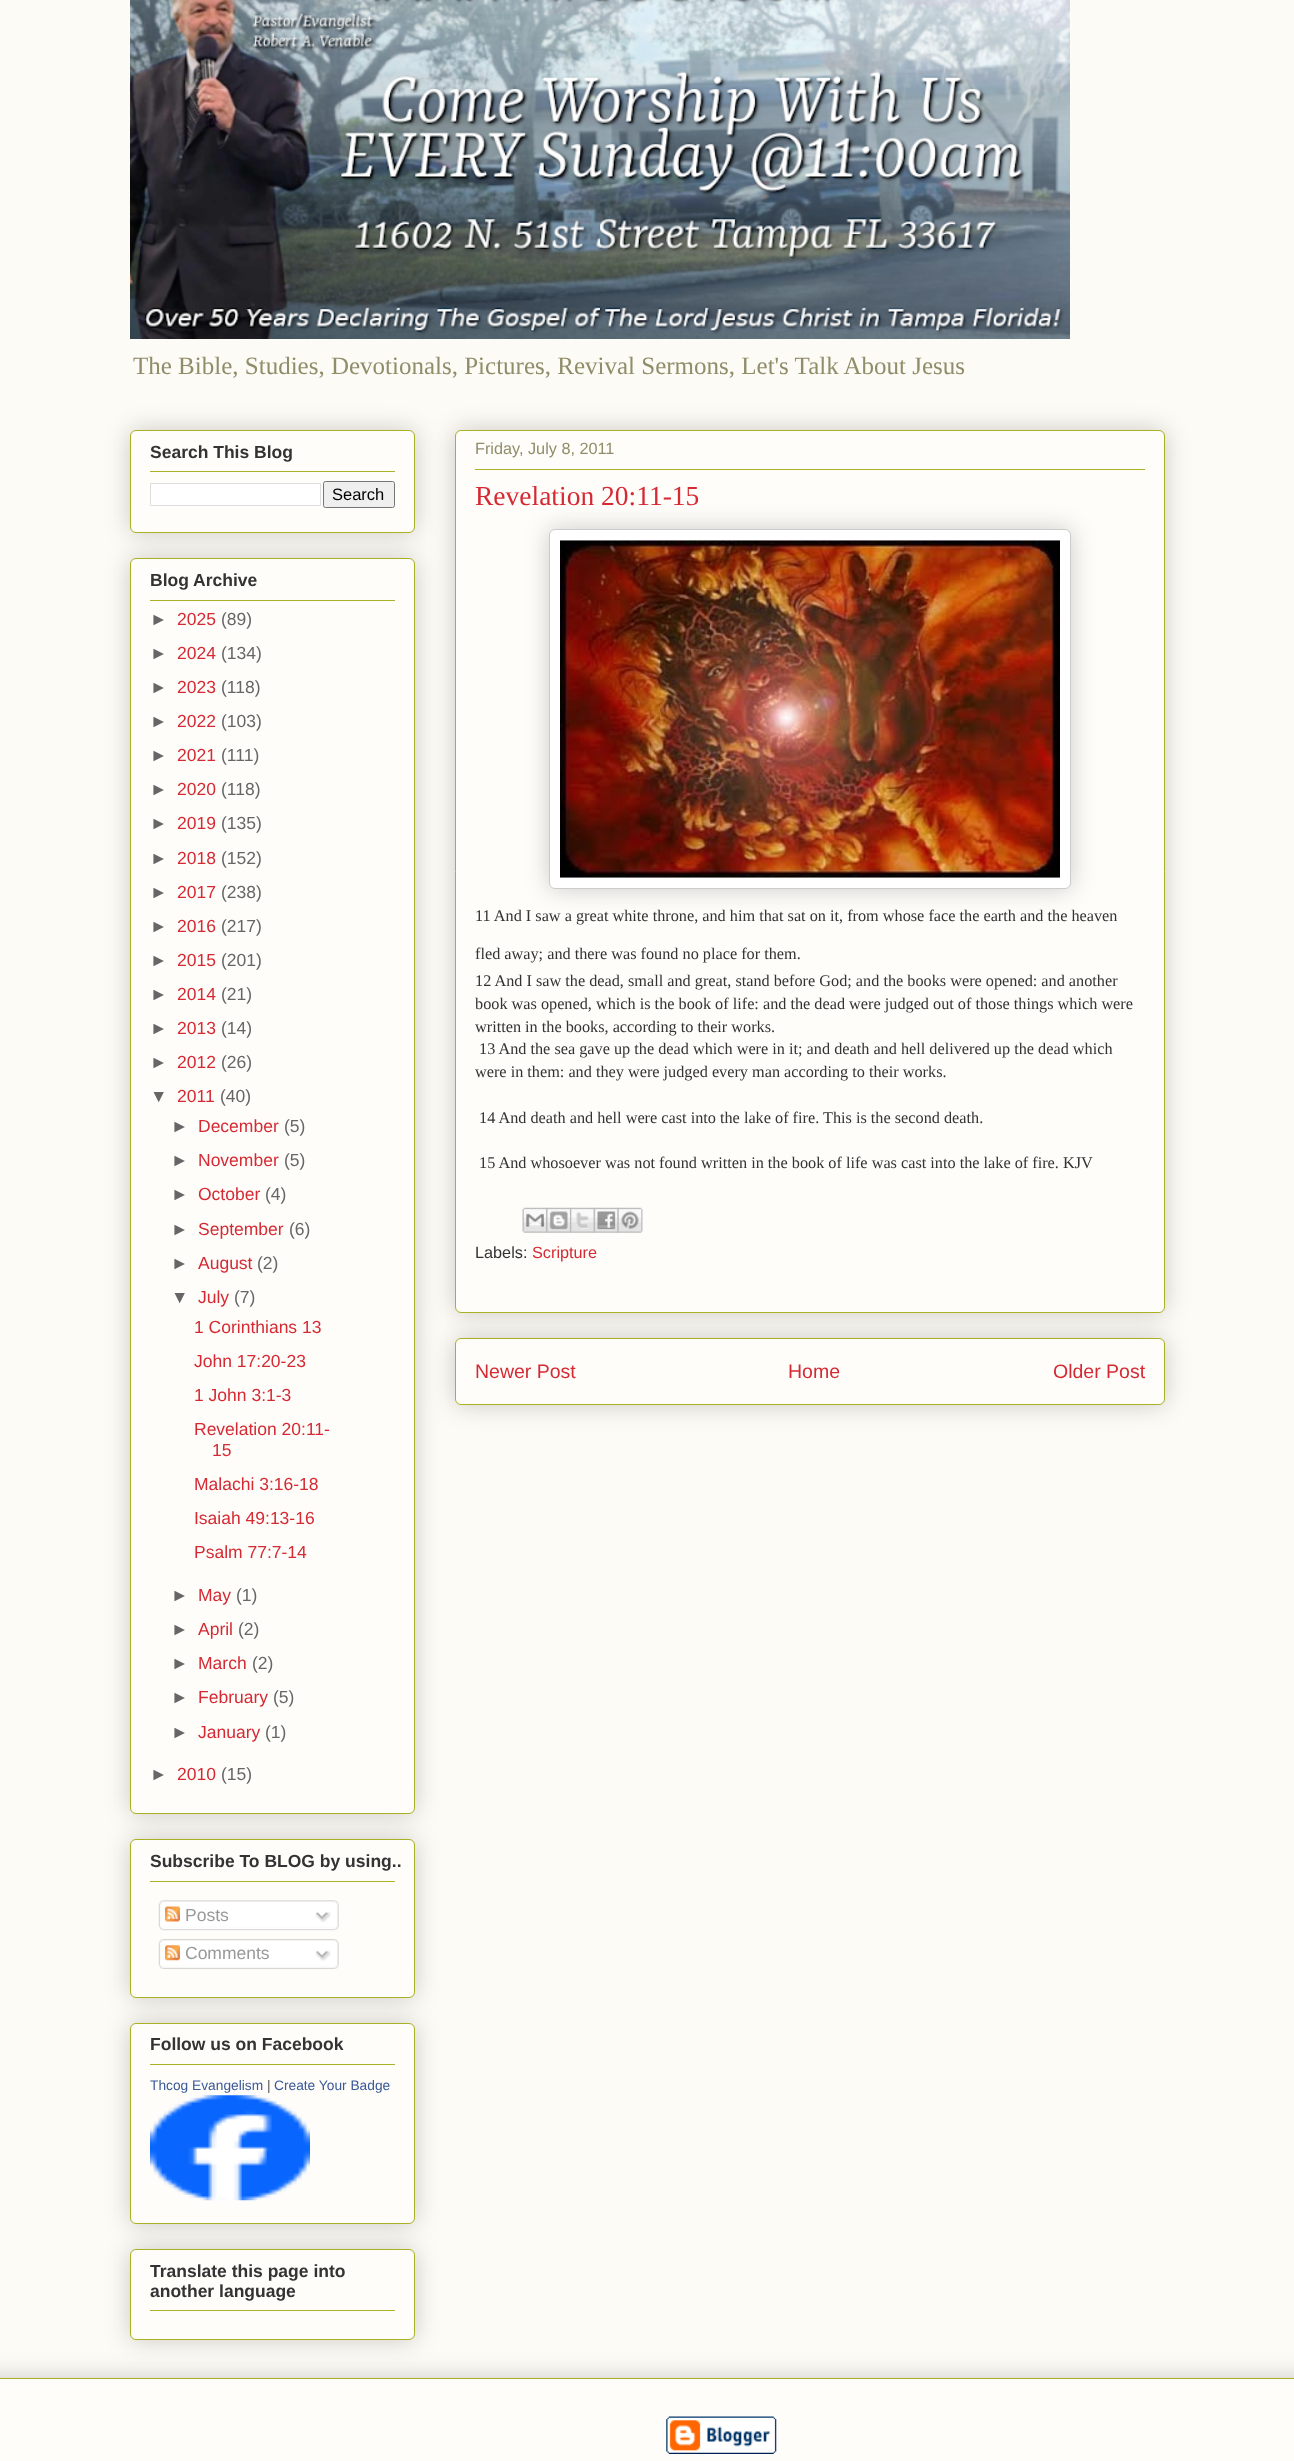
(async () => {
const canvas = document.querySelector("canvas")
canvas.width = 1294
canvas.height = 2461
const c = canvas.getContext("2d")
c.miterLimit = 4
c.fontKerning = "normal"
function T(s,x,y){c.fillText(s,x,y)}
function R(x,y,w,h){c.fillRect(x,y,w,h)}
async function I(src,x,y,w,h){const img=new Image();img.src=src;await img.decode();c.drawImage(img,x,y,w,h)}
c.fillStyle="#fcfbf5"
R(0,0,1294,2461)
await I("1.png",130,0,940,339)
c.font="25px Liberation Serif"
c.fillStyle="#908d6a"
T("The Bible, Studies, Devotionals, Pictures, Revival Sermons, Let's Talk About Jesus",133,374)
c.fillStyle="#00000033"
c.filter="blur(12.5px)"
c.beginPath()
c.roundRect(130,430,285,103,6)
c.fill()
c.filter="none"
c.fillStyle="#fefdfa"
c.beginPath()
c.roundRect(130.5,430.5,284,102,5.5)
c.fill()
c.strokeStyle="#aab123"
c.stroke()
c.font="bold 17.5px Liberation Sans"
c.fillStyle="#333"
T("Search This Blog",150,458)
c.fillStyle="#aab123"
R(150,471,245,1)
c.fillStyle="#fff"
c.beginPath()
c.rect(150.5,483.5,170,22)
c.fill()
c.strokeStyle="#ddd"
c.stroke()
c.fillStyle="#efefef"
c.beginPath()
c.roundRect(323.5,481.5,71,26,2)
c.fill()
c.strokeStyle="#767676"
c.stroke()
c.font="16.5px Liberation Sans"
c.fillStyle="#000"
T("Search",332,500)
c.fillStyle="#00000033"
c.filter="blur(12.5px)"
c.beginPath()
c.roundRect(130,1839,285,159,6)
c.fill()
c.filter="none"
c.fillStyle="#fefdfa"
c.beginPath()
c.roundRect(130.5,1839.5,284,158,5.5)
c.fill()
c.strokeStyle="#aab123"
c.stroke()
c.fillStyle="#00000033"
c.filter="blur(12.5px)"
c.beginPath()
c.roundRect(130,558,285,1256,6)
c.fill()
c.filter="none"
c.fillStyle="#fefdfa"
c.beginPath()
c.roundRect(130.5,558.5,284,1255,5.5)
c.fill()
c.stroke()
c.font="bold 17.5px Liberation Sans"
c.fillStyle="#333"
T("Blog Archive",150,586)
c.fillStyle="#aab123"
R(150,600,245,1)
c.font="17.5px Liberation Sans"
c.fillStyle="#666"
T("►",150,625)
c.fillStyle="#d52a33"
T("2025",177,625)
c.fillStyle="#666"
T("(89)",221,625)
T("►",150,659)
c.fillStyle="#d52a33"
T("2024",177,659)
c.fillStyle="#666"
T("(134)",221,659)
T("►",150,693)
c.fillStyle="#d52a33"
T("2023",177,693)
c.fillStyle="#666"
T("(118)",221,693)
T("►",150,727)
c.fillStyle="#d52a33"
T("2022",177,727)
c.fillStyle="#666"
T("(103)",221,727)
T("►",150,761)
c.fillStyle="#d52a33"
T("2021",177,761)
c.fillStyle="#666"
T("(111)",221,761)
T("►",150,795)
c.fillStyle="#d52a33"
T("2020",177,795)
c.fillStyle="#666"
T("(118)",221,795)
T("►",150,829)
c.fillStyle="#d52a33"
T("2019",177,829)
c.fillStyle="#666"
T("(135)",221,829)
T("►",150,864)
c.fillStyle="#d52a33"
T("2018",177,864)
c.fillStyle="#666"
T("(152)",221,864)
T("►",150,898)
c.fillStyle="#d52a33"
T("2017",177,898)
c.fillStyle="#666"
T("(238)",221,898)
T("►",150,932)
c.fillStyle="#d52a33"
T("2016",177,932)
c.fillStyle="#666"
T("(217)",221,932)
T("►",150,966)
c.fillStyle="#d52a33"
T("2015",177,966)
c.fillStyle="#666"
T("(201)",221,966)
T("►",150,1000)
c.fillStyle="#d52a33"
T("2014",177,1000)
c.fillStyle="#666"
T("(21)",221,1000)
T("►",150,1034)
c.fillStyle="#d52a33"
T("2013",177,1034)
c.fillStyle="#666"
T("(14)",221,1034)
T("►",150,1068)
c.fillStyle="#d52a33"
T("2012",177,1068)
c.fillStyle="#666"
T("(26)",221,1068)
T("▼",150,1102)
c.fillStyle="#d52a33"
T("2011",177,1102)
c.fillStyle="#666"
T("(40)",220,1102)
T("►",171,1132)
c.fillStyle="#d52a33"
T("December",198,1132)
c.fillStyle="#666"
T("(5)",284,1132)
T("►",171,1166)
c.fillStyle="#d52a33"
T("November",198,1166)
c.fillStyle="#666"
T("(5)",284,1166)
T("►",171,1200)
c.fillStyle="#d52a33"
T("October",198,1200)
c.fillStyle="#666"
T("(4)",265,1200)
T("►",171,1235)
c.fillStyle="#d52a33"
T("September",198,1235)
c.fillStyle="#666"
T("(6)",289,1235)
T("►",171,1269)
c.fillStyle="#d52a33"
T("August",198,1269)
c.fillStyle="#666"
T("(2)",257,1269)
T("▼",171,1303)
c.fillStyle="#d52a33"
T("July",198,1303)
c.fillStyle="#666"
T("(7)",234,1303)
c.fillStyle="#d52a33"
T("1 Corinthians 13",194,1333)
T("John 17:20-23",194,1367)
T("1 John 3:1-3",194,1401)
T("Revelation 20:11-",194,1435)
T("15",212,1456)
T("Malachi 3:16-18",194,1490)
T("Isaiah 49:13-16",194,1524)
T("Psalm 77:7-14",194,1558)
c.fillStyle="#666"
T("►",171,1601)
c.fillStyle="#d52a33"
T("May",198,1601)
c.fillStyle="#666"
T("(1)",236,1601)
T("►",171,1635)
c.fillStyle="#d52a33"
T("April",198,1635)
c.fillStyle="#666"
T("(2)",238,1635)
T("►",171,1669)
c.fillStyle="#d52a33"
T("March",198,1669)
c.fillStyle="#666"
T("(2)",252,1669)
T("►",171,1703)
c.fillStyle="#d52a33"
T("February",198,1703)
c.fillStyle="#666"
T("(5)",273,1703)
T("►",171,1738)
c.fillStyle="#d52a33"
T("January",198,1738)
c.fillStyle="#666"
T("(1)",265,1738)
T("►",150,1780)
c.fillStyle="#d52a33"
T("2010",177,1780)
c.fillStyle="#666"
T("(15)",221,1780)
c.font="bold 17.5px Liberation Sans"
c.fillStyle="#333"
T("Subscribe To BLOG by using..",150,1867)
c.fillStyle="#aab123"
R(150,1881,245,1)
await I("2.png",158,1900,181,27)
await I("3.png",165,1906,15,16)
c.font="17.5px Liberation Sans"
c.fillStyle="#999"
T("Posts",185,1921)
await I("4.png",315,1912,16,11)
await I("5.png",159,1926,180,5)
await I("6.png",158,1939,181,27)
await I("7.png",165,1945,15,16)
T("Comments",185,1959)
await I("8.png",315,1950,16,12)
await I("9.png",159,1965,180,4)
c.fillStyle="#00000033"
c.filter="blur(12.5px)"
c.beginPath()
c.roundRect(130,2023,285,201,6)
c.fill()
c.filter="none"
c.fillStyle="#fefdfa"
c.beginPath()
c.roundRect(130.5,2023.5,284,200,5.5)
c.fill()
c.stroke()
c.font="bold 17.5px Liberation Sans"
c.fillStyle="#333"
T("Follow us on Facebook",150,2050)
c.fillStyle="#aab123"
R(150,2064,245,1)
c.font="13.75px Liberation Sans"
c.fillStyle="#3b5998"
T("Thcog Evangelism",150,2090)
c.fillStyle="#555"
T("|",267,2090)
c.fillStyle="#3b5998"
T("Create Your Badge",274,2090)
await I("10.png",150,2095,160,106)
c.fillStyle="#00000033"
c.filter="blur(12.5px)"
c.beginPath()
c.roundRect(130,2249,285,91,6)
c.fill()
c.filter="none"
c.fillStyle="#fefdfa"
c.beginPath()
c.roundRect(130.5,2249.5,284,90,5.5)
c.fill()
c.stroke()
c.font="bold 17.5px Liberation Sans"
c.fillStyle="#333"
T("Translate this page into",150,2277)
T("another language",150,2297)
c.fillStyle="#aab123"
R(150,2310,245,1)
c.fillStyle="#00000033"
c.filter="blur(12.5px)"
c.beginPath()
c.roundRect(455,1338,710,67,6)
c.fill()
c.filter="none"
c.fillStyle="#fefdfa"
c.beginPath()
c.roundRect(455.5,1338.5,709,66,5.5)
c.fill()
c.stroke()
c.fillStyle="#00000033"
c.filter="blur(12.5px)"
c.beginPath()
c.roundRect(455,430,710,883,6)
c.fill()
c.filter="none"
c.fillStyle="#fefdfa"
c.beginPath()
c.roundRect(455.5,430.5,709,882,5.5)
c.fill()
c.stroke()
c.font="16.25px Liberation Sans"
c.fillStyle="#908d6a"
T("Friday, July 8, 2011",475,454)
c.fillStyle="#aab123"
R(475,469,670,1)
c.font="27.5px Liberation Serif"
c.fillStyle="#d52a33"
T("Revelation 20:11-15",475,505)
c.fillStyle="#00000033"
c.filter="blur(12.5px)"
c.beginPath()
c.roundRect(549,529,522,360,6)
c.fill()
c.filter="none"
c.fillStyle="#fff"
c.beginPath()
c.roundRect(549.5,529.5,521,359,5.5)
c.fill()
c.strokeStyle="#ccc"
c.stroke()
await I("11.png",560,540,500,338)
c.font="16.25px Liberation Serif"
c.fillStyle="#333"
T("11 And I saw a great white throne, and him that sat on it, from whose face the earth and the heaven",475,921)
T("fled away; and there was found no place for them.",475,959)
T("12 And I saw the dead, small and great, stand before God; and the books were opened: and another",475,986)
T("book was opened, which is the book of life: and the dead were judged out of those things which were",475,1009)
T("written in the books, according to their works.",475,1032)
T("13 And the sea gave up the dead which were in it; and death and hell delivered up the dead which",479,1054)
T("were in them: and they were judged every man according to their works.",475,1077)
T("14 And death and hell were cast into the lake of fire. This is the second death.",479,1123)
T("15 And whosoever was not found written in the book of life was cast into the lake of fire. KJV",479,1168)
await I("12.png",522,1207,26,26)
await I("13.png",546,1207,26,26)
await I("14.png",570,1207,25,26)
await I("15.png",593,1207,26,26)
await I("16.png",617,1207,26,26)
c.font="16.25px Liberation Sans"
T("Labels:",475,1258)
c.fillStyle="#d52a33"
T("Scripture",532,1258)
c.font="19.5px Liberation Sans"
T("Newer Post",475,1378)
T("Home",788,1378)
T("Older Post",1053,1378)
c.fillStyle="#00000033"
c.filter="blur(12.5px)"
c.beginPath()
c.rect(-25,2378,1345,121)
c.fill()
c.filter="none"
c.fillStyle="#fefdfa"
R(0,2379,1294,82)
c.fillStyle="#aab123"
R(0,2378,1294,1)
await I("17.png",666,2416,111,38)
})()
